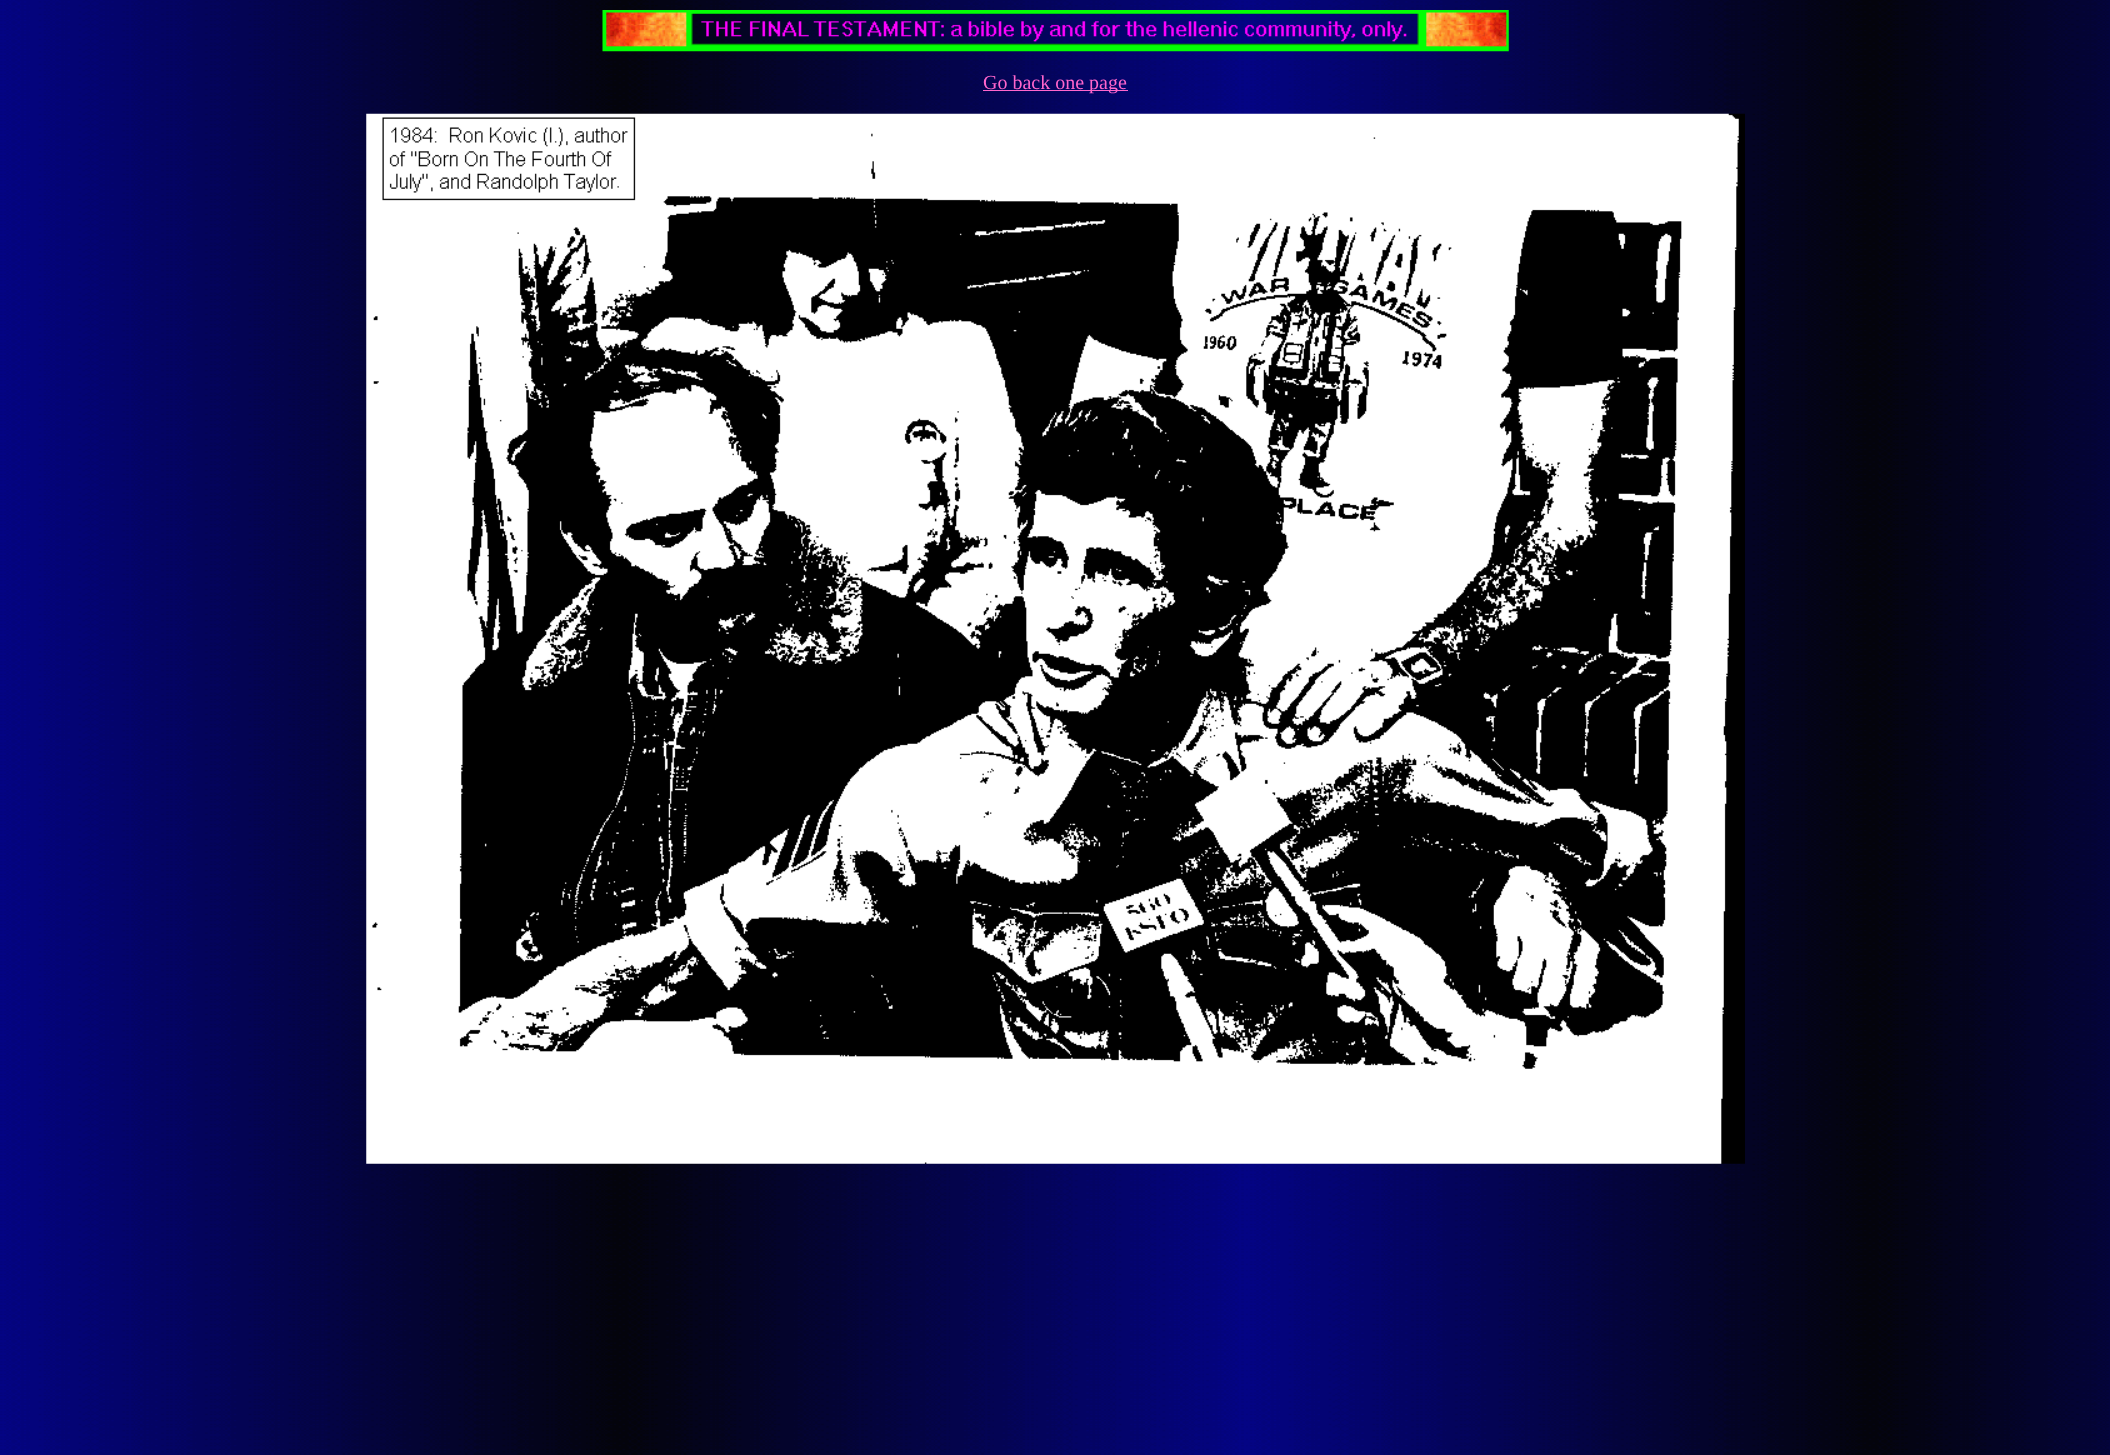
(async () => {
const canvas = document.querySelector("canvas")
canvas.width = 2110
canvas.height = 1455
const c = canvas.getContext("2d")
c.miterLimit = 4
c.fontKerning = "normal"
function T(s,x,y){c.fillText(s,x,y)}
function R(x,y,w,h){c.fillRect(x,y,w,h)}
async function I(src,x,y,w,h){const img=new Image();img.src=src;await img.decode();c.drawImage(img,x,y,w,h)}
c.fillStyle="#fff"
R(0,0,2110,1455)
await I("1.png",0,0,2110,1455)
await I("2.png",602,10,907,42)
c.fillStyle="#f6c"
R(983,90,145,1)
c.font="20px Liberation Serif"
T("Go back one page",983,89)
await I("3.png",366,113,1379,1051)
})()
